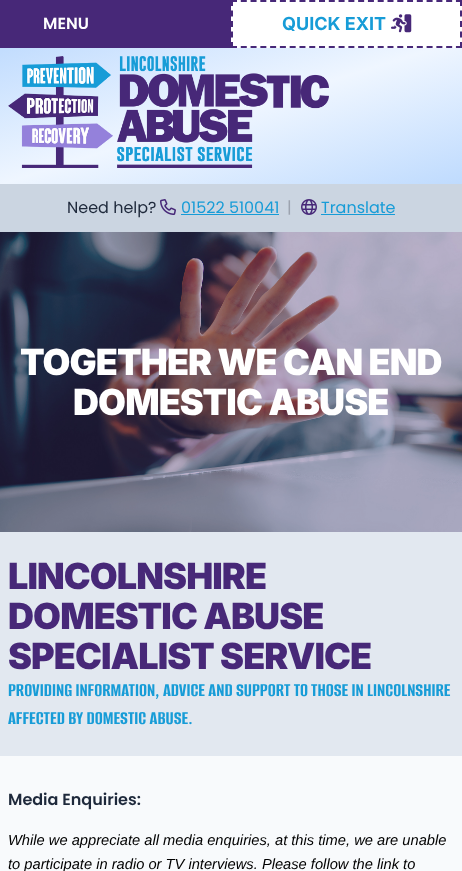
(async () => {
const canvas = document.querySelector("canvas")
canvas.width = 462
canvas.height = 871
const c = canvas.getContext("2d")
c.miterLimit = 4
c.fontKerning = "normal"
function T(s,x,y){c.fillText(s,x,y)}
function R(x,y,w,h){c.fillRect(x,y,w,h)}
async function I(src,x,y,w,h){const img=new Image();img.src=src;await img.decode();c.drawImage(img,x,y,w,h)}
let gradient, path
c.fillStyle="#f8fafc"
R(0,0,462,871)
gradient = c.createLinearGradient(190,-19,272,243)
gradient.addColorStop(0,"#bfdbfe")
gradient.addColorStop(.5,"#eff6ff")
gradient.addColorStop(1,"#bfdbfe")
c.fillStyle = gradient
R(0,48,462,136)
c.fillStyle="#472878"
R(0,0,231,48)
c.font="600 16px Poppins"
c.fillStyle="#fff"
T("MENU",43,29)
R(231,0,231,48)
path = new Path2D("M231 1h231")
c.strokeStyle="#472878"
c.lineWidth=2
c.setLineDash([6,3.78])
c.stroke(path)
path = new Path2D("M461 0v48")
c.setLineDash([6,4.5])
c.stroke(path)
path = new Path2D("M231 47h231")
c.setLineDash([6,3.78])
c.stroke(path)
path = new Path2D("M232 0v48")
c.setLineDash([6,4.5])
c.stroke(path)
c.font="bold 18px Inter"
c.fillStyle="#179cd7"
T("QUICK EXIT",282,30)
await I("1.png",391,14,21,19)
await I("2.png",8,56,105,112)
await I("3.png",117,56,212,112)
c.fillStyle="#cbd5e1"
R(0,184,462,48)
c.font="16px Poppins"
c.fillStyle="#1e293b"
T("Need help?",67,213)
await I("4.png",160,199,16,16)
c.fillStyle="#179cd7"
T("01522 510041",181,213)
R(181,214,98,1)
c.fillStyle="#9ca3af"
T("|",287,213)
await I("5.png",301,199,16,16)
c.fillStyle="#179cd7"
T("Translate",321,213)
R(321,214,74,1)
await I("6.png",0,232,462,300)
c.letterSpacing="-0.9px"
c.font="900 36px Inter"
c.fillStyle="#fff"
T("TOGETHER WE CAN END",20,375)
T("DOMESTIC ABUSE",73,415)
c.fillStyle="#e2e8f0"
R(0,532,462,224)
c.fillStyle="#472878"
T("LINCOLNSHIRE",8,589)
T("DOMESTIC ABUSE",8,629)
T("SPECIALIST SERVICE",8,669)
c.letterSpacing="0px"
c.font="100 20px Alumni Sans"
c.fillStyle="#179cd7"
T("PROVIDING INFORMATION, ADVICE AND SUPPORT TO THOSE IN LINCOLNSHIRE",8,696)
T("AFFECTED BY DOMESTIC ABUSE.",8,724)
c.font="600 16px Poppins"
c.fillStyle="#1e293b"
T("Media Enquiries:",8,805)
c.font="italic 14.7px Liberation Sans"
c.fillStyle="#000"
T("While we appreciate all media enquiries, at this time, we are unable",8,845)
T("to participate in radio or TV interviews. Please follow the link to",8,869)
})()
